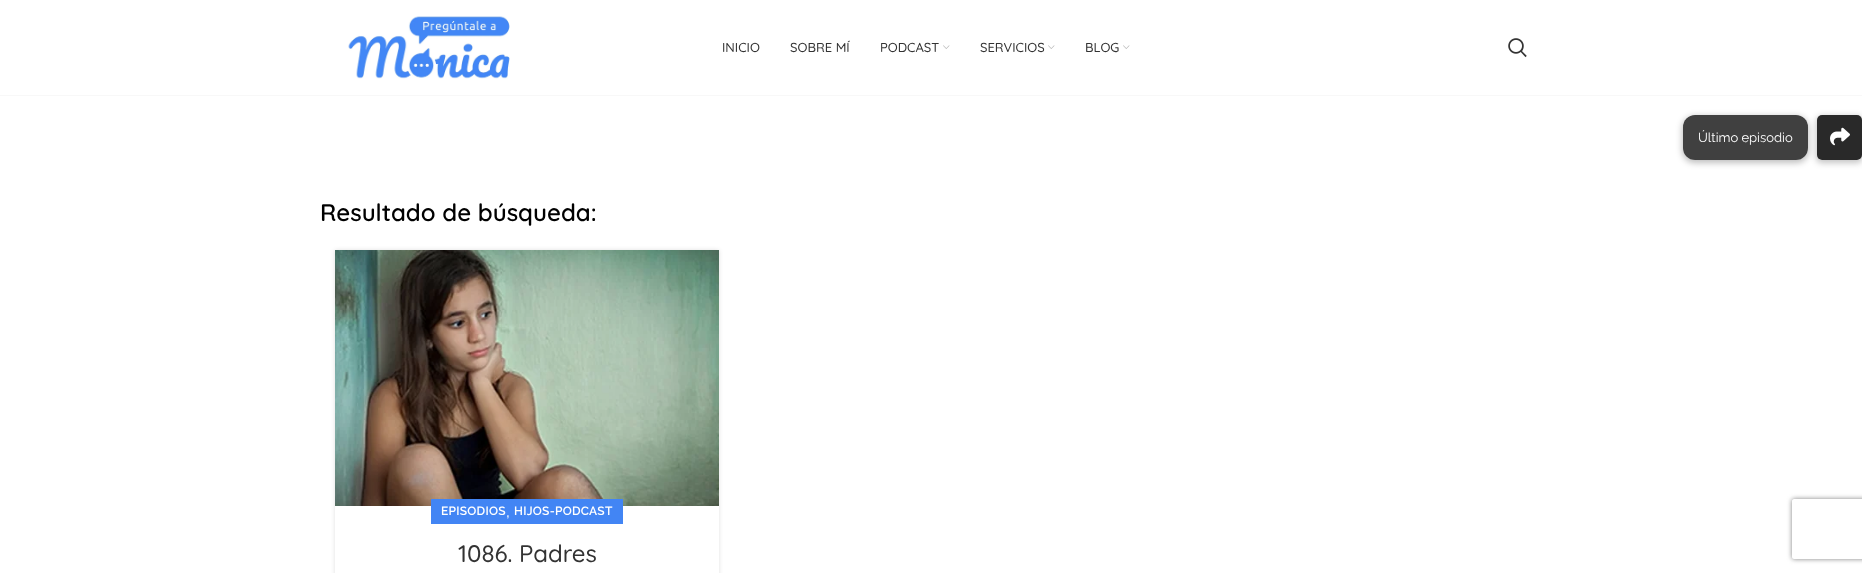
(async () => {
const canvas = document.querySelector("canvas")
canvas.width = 1862
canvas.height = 573
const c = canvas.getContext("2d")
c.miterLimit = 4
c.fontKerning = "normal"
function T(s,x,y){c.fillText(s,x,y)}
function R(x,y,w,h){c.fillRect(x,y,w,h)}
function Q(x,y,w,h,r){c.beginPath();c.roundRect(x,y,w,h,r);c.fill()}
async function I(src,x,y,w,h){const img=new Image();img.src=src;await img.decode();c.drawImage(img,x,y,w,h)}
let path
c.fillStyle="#fff"
R(0,0,1862,573)
c.fillStyle="#f8f8f8"
R(0,95,1862,1)
await I("1.png",348,16,162,63)
c.font="500 13px Quicksand"
c.fillStyle="#333"
T("INICIO",722,52)
T("SOBRE MÍ",790,52)
T("PODCAST",880,52)
await I("2.png",943,45,7,4)
T("SERVICIOS",980,52)
await I("2.png",1048,45,7,4)
T("BLOG",1085,52)
await I("2.png",1123,45,7,4)
await I("3.png",1508,38,19,20)
c.font="600 24px Quicksand"
c.fillStyle="#000"
T("Resultado de búsqueda:",320,221)
c.save()
path = new Path2D("M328 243h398v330h-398zm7 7h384v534h-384z")
c.clip(path,"evenodd")
c.fillStyle="#0000001f"
c.filter="blur(2px)"
c.beginPath()
c.rect(335,250,384,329)
c.fill()
c.filter="none"
c.restore()
await I("4.png",335,250,384,256)
c.fillStyle="#4285f4"
R(431,499,192,25)
c.letterSpacing="0.25px"
c.font="600 12px Raleway"
c.fillStyle="#fff"
T("EPISODIOS",441,515)
T("HIJOS-PODCAST",514,515)
c.letterSpacing="0px"
c.font="17px Raleway"
T(",",506,517)
c.font="500 24px Quicksand"
c.fillStyle="#333"
T("1086. Padres",458,562)
c.save()
path = new Path2D("M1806 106h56v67h-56zm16 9h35c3 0 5 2 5 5v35c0 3-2 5-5 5h-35c-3 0-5-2-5-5v-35c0-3 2-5 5-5z")
c.clip(path,"evenodd")
c.fillStyle="#0000003b"
c.filter="blur(3px)"
c.beginPath()
c.roundRect(1816,116,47,47,6)
c.fill()
c.filter="none"
c.restore()
c.fillStyle="#000000d6"
Q(1817,115,45,45,5)
c.save()
path = new Path2D("M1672 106h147v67h-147zm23 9h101c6.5 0 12 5.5 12 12v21c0 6.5-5.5 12-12 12h-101c-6.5 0-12-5.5-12-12v-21c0-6.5 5.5-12 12-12z")
c.clip(path,"evenodd")
c.fillStyle="#00000040"
c.filter="blur(3px)"
c.beginPath()
c.roundRect(1682,116,127,47,13)
c.fill()
c.filter="none"
c.restore()
c.fillStyle="#000000bf"
Q(1683,115,125,45,12)
c.font="13px Raleway"
c.fillStyle="#fff"
T("Último episodio",1698,142)
await I("5.png",1830,127,20,19)
c.save()
path = new Path2D("M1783 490h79v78h-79zm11 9h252c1 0 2 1 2 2v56c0 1-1 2-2 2h-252c-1 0-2-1-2-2v-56c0-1 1-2 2-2z")
c.clip(path,"evenodd")
c.fillStyle="#808080"
c.filter="blur(2.5px)"
c.beginPath()
c.roundRect(1792,499,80,60,2)
c.fill()
c.filter="none"
c.restore()
})()
